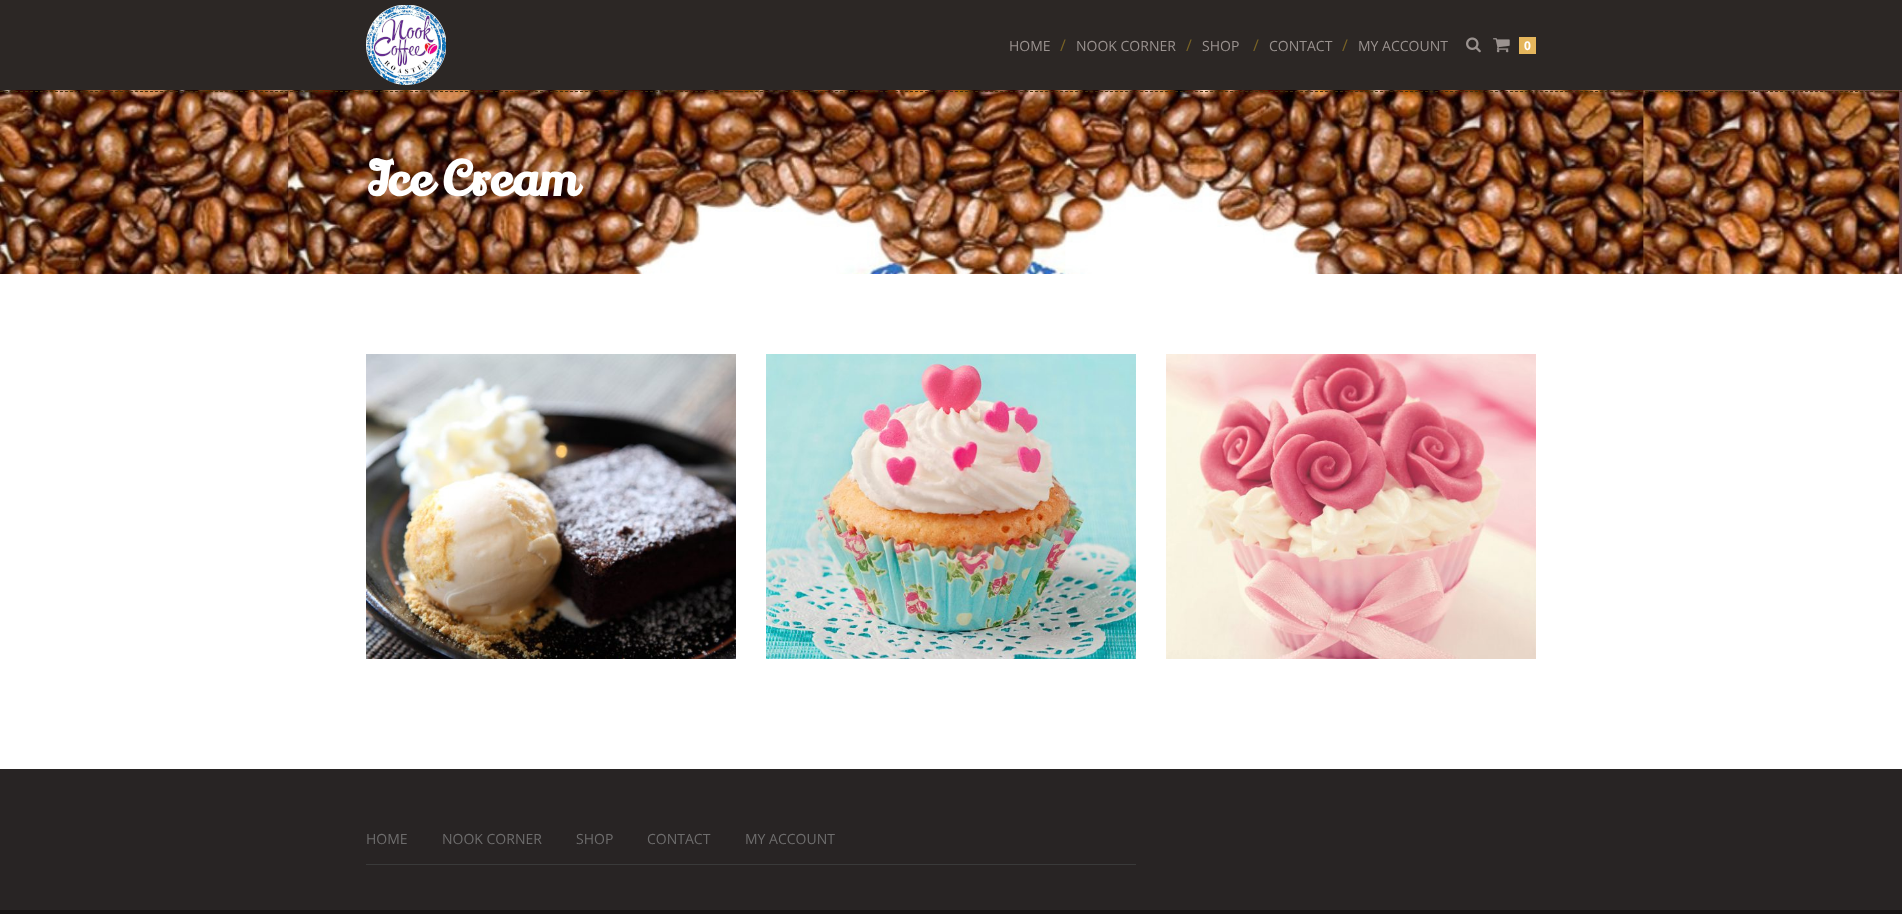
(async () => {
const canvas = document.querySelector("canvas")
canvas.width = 1902
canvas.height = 914
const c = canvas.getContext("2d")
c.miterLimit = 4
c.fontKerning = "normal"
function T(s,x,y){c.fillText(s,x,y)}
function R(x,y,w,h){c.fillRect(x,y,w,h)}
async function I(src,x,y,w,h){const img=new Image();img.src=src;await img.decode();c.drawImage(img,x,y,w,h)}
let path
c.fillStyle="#fff"
R(0,0,1902,914)
c.fillStyle="#2c2725"
R(0,0,1902,90)
await I("1.png",366,5,80,80)
c.font="14px Open Sans"
c.fillStyle="#9a928f"
T("HOME",1009,51)
c.font="16px Open Sans"
c.fillStyle="#786225"
T("/",1060,51)
c.font="14px Open Sans"
c.fillStyle="#9a928f"
T("NOOK CORNER",1076,51)
c.font="16px Open Sans"
c.fillStyle="#786225"
T("/",1186,51)
c.font="14px Open Sans"
c.fillStyle="#9a928f"
T("SHOP",1202,51)
c.font="16px Open Sans"
c.fillStyle="#786225"
T("/",1253,51)
c.font="14px Open Sans"
c.fillStyle="#9a928f"
T("CONTACT",1269,51)
c.font="16px Open Sans"
c.fillStyle="#786225"
T("/",1342,51)
c.font="14px Open Sans"
c.fillStyle="#9a928f"
T("MY ACCOUNT",1358,51)
await I("2.png",1466,37,15,16)
await I("3.png",1493,38,17,15)
c.fillStyle="#e5b65c"
R(1519,37,17,17)
c.font="bold 12px Open Sans"
c.fillStyle="#fff"
T("0",1524,50)
await I("4.png",0,90,1902,184)
path = new Path2D("M0 91.5h1902")
c.strokeStyle="#3f310a"
c.setLineDash([3,2])
c.stroke(path)
c.font="bold 48px Lily Script One"
T("Ice Cream",366,196)
await I("5.png",366,354,370,305)
await I("6.png",766,354,370,305)
await I("7.png",1166,354,370,305)
c.fillStyle="#282424"
R(0,769,1902,141)
c.fillStyle="#3a3a3a"
R(366,864,770,1)
c.font="14px Open Sans"
c.fillStyle="#6e6d6d"
T("HOME",366,844)
T("NOOK CORNER",442,844)
T("SHOP",576,844)
T("CONTACT",647,844)
T("MY ACCOUNT",745,844)
c.fillStyle="#181515"
R(0,910,1902,4)
})()
